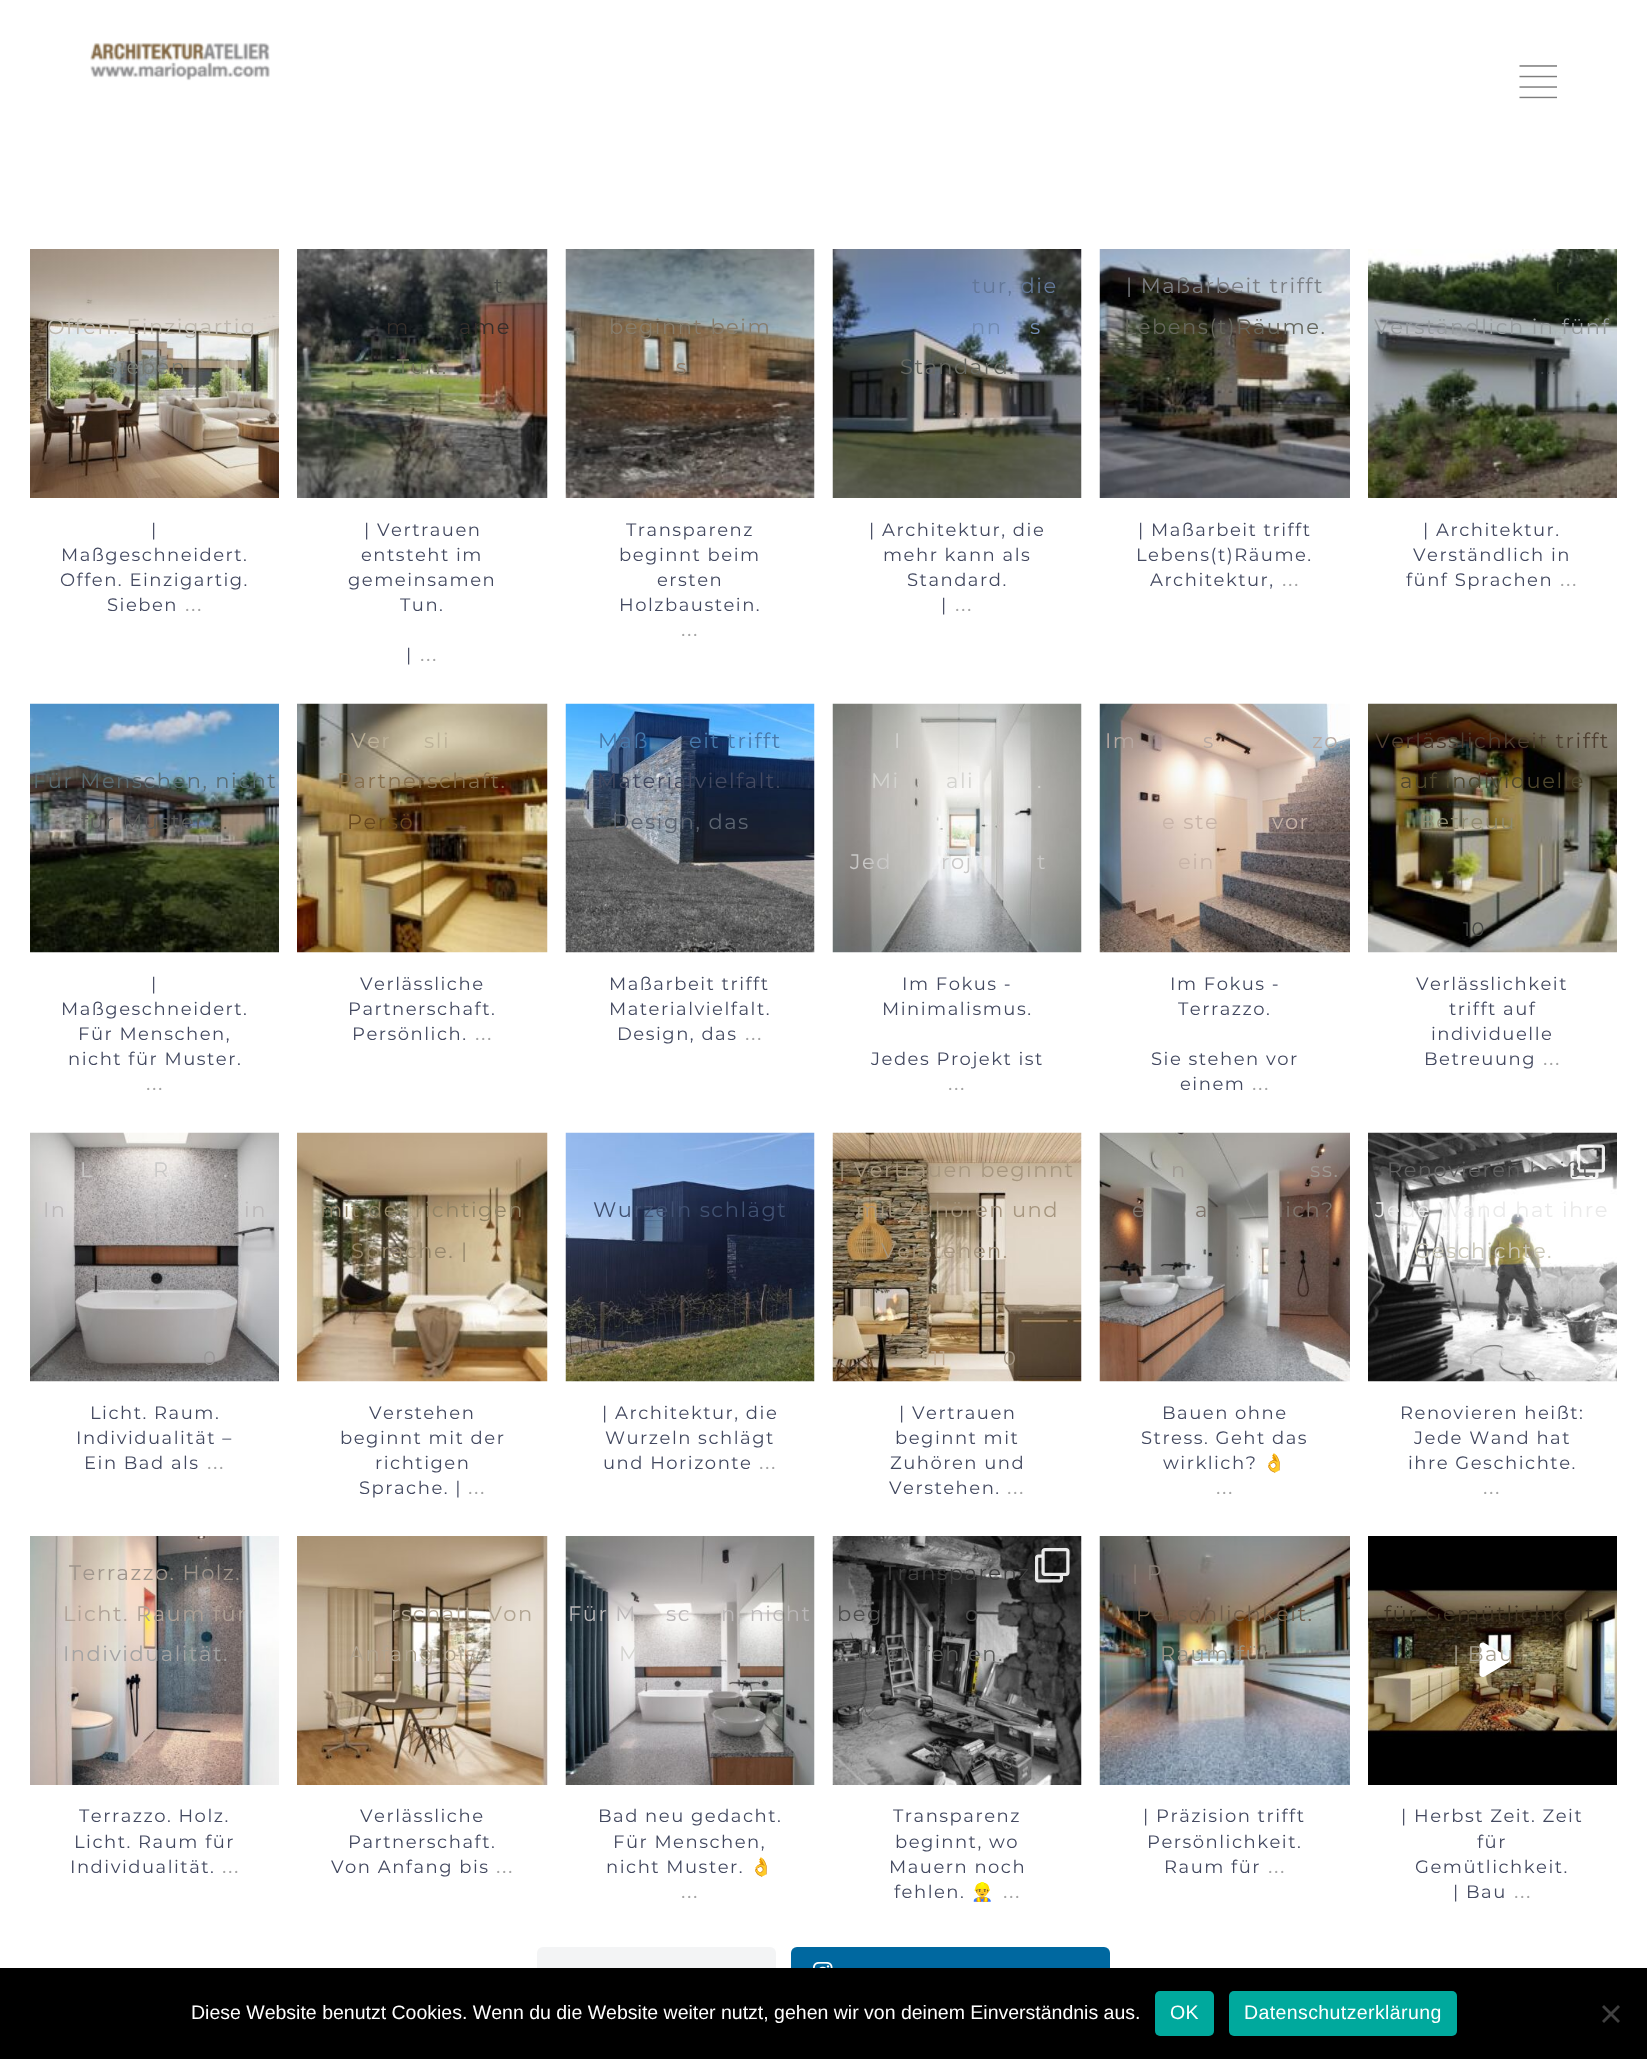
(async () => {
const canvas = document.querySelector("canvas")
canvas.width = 1647
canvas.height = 2059
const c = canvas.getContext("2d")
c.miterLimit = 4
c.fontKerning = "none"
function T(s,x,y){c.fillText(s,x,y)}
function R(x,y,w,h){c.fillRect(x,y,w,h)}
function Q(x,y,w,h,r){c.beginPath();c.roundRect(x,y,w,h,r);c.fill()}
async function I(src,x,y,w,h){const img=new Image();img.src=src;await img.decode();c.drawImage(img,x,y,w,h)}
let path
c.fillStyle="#fff"
R(0,0,1647,2059)
await I("1.png",90,42,180,39)
await I("2.png",1519,65,38,34)
await I("3.png",30,249,249,249)
c.letterSpacing="1.5px"
c.font="21px Montserrat"
c.fillStyle="#bdb7ae"
T("Offen. Einzigartig.",47,334)
c.fillStyle="#76786f"
T("Sieben",105,374)
c.font="18px Montserrat"
c.fillStyle="#434960"
T("|",151,536)
T("Maßgeschneidert.",61,561)
T("Offen. Einzigartig.",60,586)
T("Sieben",107,611)
c.font="21px Montserrat"
c.fillStyle="#a3a3a3"
T("...",185,611)
await I("4.png",297,249,251,249)
c.fillStyle="#464846"
T("t",494,293)
c.fillStyle="#362f2b"
T("m",386,334)
T("ame",459,334)
c.fillStyle="#74785f"
T("Tun.",397,374)
c.font="18px Montserrat"
c.fillStyle="#434960"
T("| Vertrauen",364,536)
T("entsteht im",361,561)
T("gemeinsamen",348,586)
T("Tun.",400,611)
T("|",406,661)
c.font="21px Montserrat"
c.fillStyle="#a3a3a3"
T("...",420,661)
await I("5.png",565,249,250,249)
c.fillStyle="#877d6c"
T("beginnt beim",609,334)
c.fillStyle="#927960"
T("s",676,374)
c.font="18px Montserrat"
c.fillStyle="#434960"
T("Transparenz",626,536)
T("beginnt beim",619,561)
T("ersten",657,586)
T("Holzbaustein.",619,611)
c.font="21px Montserrat"
c.fillStyle="#a3a3a3"
T("...",681,636)
await I("6.png",832,249,250,249)
c.fillStyle="#627798"
T("tur, die",972,293)
c.fillStyle="#718bb2"
T("nn",971,334)
T("s",1030,334)
c.fillStyle="#676963"
T("Standard.",900,374)
c.fillStyle="#786c64"
T("...",952,415)
c.font="18px Montserrat"
c.fillStyle="#434960"
T("| Architektur, die",869,536)
T("mehr kann als",883,561)
T("Standard.",907,586)
T("|",941,611)
c.font="21px Montserrat"
c.fillStyle="#a3a3a3"
T("...",955,611)
await I("7.png",1099,249,251,249)
c.fillStyle="#7b7e83"
T("| Maßarbeit trifft",1126,293)
c.fillStyle="#66675d"
T("Lebens(t)Räume.",1124,334)
c.font="18px Montserrat"
c.fillStyle="#434960"
T("| Maßarbeit trifft",1138,536)
T("Lebens(t)Räume.",1136,561)
T("Architektur,",1150,586)
c.font="21px Montserrat"
c.fillStyle="#a3a3a3"
T("...",1282,586)
await I("8.png",1368,249,249,249)
c.fillStyle="#26331b"
T("r",1555,293)
c.fillStyle="#959a9c"
T("Verständlich in fünf",1374,334)
c.fillStyle="#404548"
T("...",1540,374)
c.font="18px Montserrat"
c.fillStyle="#434960"
T("| Architektur.",1423,536)
T("Verständlich in",1413,561)
T("fünf Sprachen",1406,586)
c.font="21px Montserrat"
c.fillStyle="#a3a3a3"
T("...",1560,586)
await I("9.png",30,703,249,250)
c.fillStyle="#5a6c73"
T("Für Menschen, nicht",33,788)
c.fillStyle="#5a5b59"
T("für Muster.",81,829)
c.fillStyle="#615b4b"
T("...",211,829)
c.font="18px Montserrat"
c.fillStyle="#434960"
T("|",151,990)
T("Maßgeschneidert.",61,1015)
T("Für Menschen,",78,1040)
T("nicht für Muster.",68,1065)
c.font="21px Montserrat"
c.fillStyle="#a3a3a3"
T("...",146,1090)
await I("10.png",297,703,251,250)
c.fillStyle="#beb39a"
T("Ver",351,748)
T("sli",424,748)
c.fillStyle="#876f4d"
T("Partnerschaft.",337,788)
c.fillStyle="#6a491e"
T("Persö",347,829)
c.font="18px Montserrat"
c.fillStyle="#434960"
T("Verlässliche",360,990)
T("Partnerschaft.",348,1015)
T("Persönlich.",352,1040)
c.font="21px Montserrat"
c.fillStyle="#a3a3a3"
T("...",475,1040)
await I("11.png",565,703,250,250)
c.fillStyle="#4679ac"
T("Maß",598,748)
T("eit trifft",689,748)
c.fillStyle="#434960"
T("Materialvielfalt.",597,788)
c.fillStyle="#5c6470"
T("Design, das",612,829)
c.font="18px Montserrat"
c.fillStyle="#434960"
T("Maßarbeit trifft",609,990)
T("Materialvielfalt.",609,1015)
T("Design, das",617,1040)
c.font="21px Montserrat"
c.fillStyle="#a3a3a3"
T("...",745,1040)
await I("12.png",832,703,250,250)
c.fillStyle="#d4d4d0"
T("I",894,748)
T("Mi",871,788)
T("ali",946,788)
T(".",1037,788)
c.fillStyle="#cac9c8"
T("Jed",850,869)
T("roj",941,869)
T("t",1037,869)
c.font="18px Montserrat"
c.fillStyle="#434960"
T("Im Fokus -",902,990)
T("Minimalismus.",882,1015)
T("Jedes Projekt ist",871,1065)
c.font="21px Montserrat"
c.fillStyle="#a3a3a3"
T("...",948,1090)
await I("13.png",1099,703,251,250)
c.fillStyle="#b7a9a2"
T("Im",1105,748)
T("s",1203,748)
T("zo.",1312,748)
c.fillStyle="#c8b4a8"
T("e ste",1162,829)
T("vor",1272,829)
T("ein",1178,869)
c.font="18px Montserrat"
c.fillStyle="#434960"
T("Im Fokus -",1170,990)
T("Terrazzo.",1178,1015)
T("Sie stehen vor",1151,1065)
T("einem",1180,1090)
c.font="21px Montserrat"
c.fillStyle="#a3a3a3"
T("...",1252,1090)
await I("14.png",1368,703,249,250)
c.fillStyle="#4d3e30"
T("Verlässlichkeit trifft",1375,748)
c.fillStyle="#4f472d"
T("auf individuelle",1400,788)
c.fillStyle="#8f8a6f"
T("Betreuu",1419,829)
c.font="19.5px Montserrat"
c.fillStyle="#464846"
T("10",1463,936)
c.font="18px Montserrat"
c.fillStyle="#434960"
T("Verlässlichkeit",1416,990)
T("trifft auf",1449,1015)
T("individuelle",1431,1040)
T("Betreuung",1424,1065)
c.font="21px Montserrat"
c.fillStyle="#a3a3a3"
T("...",1543,1065)
await I("15.png",30,1132,249,250)
c.fillStyle="#cac9c8"
T("L",80,1177)
T(". R",140,1177)
T(".",223,1177)
c.fillStyle="#bbb8b9"
T("In",43,1217)
T("in",244,1217)
c.font="19.5px Montserrat"
c.fillStyle="#979595"
T("0",203,1365)
c.font="18px Montserrat"
c.fillStyle="#434960"
T("Licht. Raum.",90,1419)
T("Individualität –",76,1444)
T("Ein Bad als",84,1469)
c.font="21px Montserrat"
c.fillStyle="#a3a3a3"
T("...",207,1469)
await I("16.png",297,1132,251,250)
c.fillStyle="#908365"
T("mit der richtigen",320,1217)
c.fillStyle="#96876c"
T("Sprache. |",351,1258)
c.font="18px Montserrat"
c.fillStyle="#434960"
T("Verstehen",369,1419)
T("beginnt mit der",340,1444)
T("richtigen",375,1469)
T("Sprache. |",359,1494)
c.font="21px Montserrat"
c.fillStyle="#a3a3a3"
T("...",468,1494)
await I("17.png",565,1132,250,250)
c.fillStyle="#415171"
T("Wurzeln schlägt",593,1217)
c.font="18px Montserrat"
c.fillStyle="#434960"
T("| Architektur, die",602,1419)
T("Wurzeln schlägt",605,1444)
T("und Horizonte",603,1469)
c.font="21px Montserrat"
c.fillStyle="#a3a3a3"
T("...",759,1469)
await I("18.png",832,1132,250,250)
c.fillStyle="#a6967f"
T("| Vertrauen beginnt",839,1177)
T("mit Zuhören und",856,1217)
T("Verstehen.",881,1258)
c.font="19.5px Montserrat"
c.fillStyle="#c1ab92"
T("11",931,1365)
c.fillStyle="#a29585"
T("0",1003,1365)
c.font="18px Montserrat"
c.fillStyle="#434960"
T("| Vertrauen",899,1419)
T("beginnt mit",895,1444)
T("Zuhören und",890,1469)
T("Verstehen.",889,1494)
c.font="21px Montserrat"
c.fillStyle="#a3a3a3"
T("...",1007,1494)
await I("19.png",1099,1132,251,250)
c.fillStyle="#9f9993"
T("n",1171,1177)
T("ss.",1310,1177)
c.fillStyle="#80766e"
T("e",1132,1217)
T("a",1195,1217)
T("lich?",1278,1217)
c.font="18px Montserrat"
c.fillStyle="#434960"
T("Bauen ohne",1162,1419)
T("Stress. Geht das",1141,1444)
T("wirklich?",1163,1469)
c.font="18px Noto Color Emoji"
T("👌",1263,1469)
c.font="21px Montserrat"
c.fillStyle="#a3a3a3"
T("...",1216,1494)
await I("20.png",1368,1132,249,250)
await I("21.png",1570,1144,35,35)
c.fillStyle="#616161"
T("Renovieren heißt:",1387,1177)
c.fillStyle="#eaeaea"
T("Jede Wand hat ihre",1375,1217)
c.fillStyle="#cac7b7"
T("Geschichte.",1414,1258)
c.font="18px Montserrat"
c.fillStyle="#434960"
T("Renovieren heißt:",1400,1419)
T("Jede Wand hat",1414,1444)
T("ihre Geschichte.",1408,1469)
c.font="21px Montserrat"
c.fillStyle="#a3a3a3"
T("...",1483,1494)
await I("22.png",30,1536,249,249)
c.fillStyle="#9f958c"
T("Terrazzo. Holz.",69,1580)
c.fillStyle="#afa297"
T("Licht. Raum für",63,1621)
c.fillStyle="#a3a3a3"
T("Individualität.",63,1661)
c.font="18px Montserrat"
c.fillStyle="#434960"
T("Terrazzo. Holz.",79,1822)
T("Licht. Raum für",74,1848)
T("Individualität.",70,1873)
c.font="21px Montserrat"
c.fillStyle="#a3a3a3"
T("...",222,1873)
await I("23.png",297,1536,251,249)
c.fillStyle="#b1a491"
T("rschaft. Von",391,1621)
T("Anfang bis",349,1661)
c.fillStyle="#cac7b7"
T("...",477,1661)
c.font="18px Montserrat"
c.fillStyle="#434960"
T("Verlässliche",360,1822)
T("Partnerschaft.",348,1848)
T("Von Anfang bis",331,1873)
c.font="21px Montserrat"
c.fillStyle="#a3a3a3"
T("...",496,1873)
await I("24.png",565,1536,250,249)
c.fillStyle="#bbb8b9"
T("Für M",568,1621)
T("sc",666,1621)
T("n, nicht",721,1621)
c.fillStyle="#d4d4d0"
T("M",619,1661)
T(".",702,1661)
c.font="18px Montserrat"
c.fillStyle="#434960"
T("Bad neu gedacht.",598,1822)
T("Für Menschen,",613,1848)
T("nicht Muster.",606,1873)
c.font="18px Noto Color Emoji"
T("👌",750,1873)
c.font="21px Montserrat"
c.fillStyle="#a3a3a3"
T("...",681,1898)
await I("25.png",832,1536,250,249)
c.fillStyle="#404040"
T("Transparenz",884,1580)
c.fillStyle="#4d4d4d"
T("beg",837,1621)
T("o",965,1621)
c.wordSpacing="-1px"
c.fillStyle="#5a5b59"
T("noch fehlen.",857,1661)
c.wordSpacing="0px"
c.font="19.5px Montserrat"
c.fillStyle="#404040"
T("8",932,1769)
c.fillStyle="#4d4d4d"
T("0",1001,1769)
await I("26.png",1035,1548,35,35)
c.font="18px Montserrat"
c.fillStyle="#434960"
T("Transparenz",893,1822)
T("beginnt, wo",895,1848)
T("Mauern noch",889,1873)
T("fehlen.",894,1898)
c.font="18px Noto Color Emoji"
T("👷‍♂️",971,1898)
c.font="21px Montserrat"
c.fillStyle="#a3a3a3"
T("...",1003,1898)
await I("27.png",1099,1536,251,249)
c.fillStyle="#897f77"
T("| P",1132,1580)
c.fillStyle="#705e4b"
T("Persönlichkeit.",1136,1621)
c.fillStyle="#999586"
T("Raum für",1160,1661)
c.font="18px Montserrat"
c.fillStyle="#434960"
T("| Präzision trifft",1143,1822)
T("Persönlichkeit.",1147,1848)
T("Raum für",1164,1873)
c.font="21px Montserrat"
c.fillStyle="#a3a3a3"
T("...",1268,1873)
await I("28.png",1368,1536,249,249)
c.fillStyle="#413524"
T("für Gemütlichkeit.",1384,1621)
c.fillStyle="#fff"
path = new Path2D("M1508.5 1657l-24-14c-2-1-5 0-5 2.5v28.5c0 2.5 3 4 5 2.5l24-14c2-1 2-4.5 0-5.5z")
c.fill(path)
c.fillStyle="#a8a293"
T("| Bau",1453,1661)
c.font="18px Montserrat"
c.fillStyle="#434960"
T("| Herbst Zeit. Zeit",1401,1822)
T("für",1477,1848)
T("Gemütlichkeit.",1415,1873)
T("| Bau",1453,1898)
c.font="21px Montserrat"
c.fillStyle="#a3a3a3"
T("...",1514,1898)
c.fillStyle="#f3f4f5"
Q(537,1947,239,51,6)
c.fillStyle="#0068a0"
Q(791,1947,319,51,6)
await I("29.png",813,1962,20,6)
c.fillStyle="#000"
R(0,1968,1647,91)
c.letterSpacing="0px"
c.font="19.5px Liberation Sans"
c.fillStyle="#fff"
T("Diese Website benutzt Cookies. Wenn du die Website weiter nutzt, gehen wir von deinem Einverständnis aus.",191,2019)
c.fillStyle="#00a99d"
Q(1155,1991,59,45,5)
c.letterSpacing="0.4px"
c.fillStyle="#fff"
T("OK",1170,2019)
c.fillStyle="#00a99d"
Q(1229,1991,228,45,5)
c.fillStyle="#fff"
T("Datenschutzerklärung",1244,2019)
c.fillStyle="#404040"
path = new Path2D("M1618 2005l2 2l-16 16l-2-2z")
c.fill(path)
path = new Path2D("M1602 2007l2-2l16 16l-2 2z")
c.fill(path)
})()
